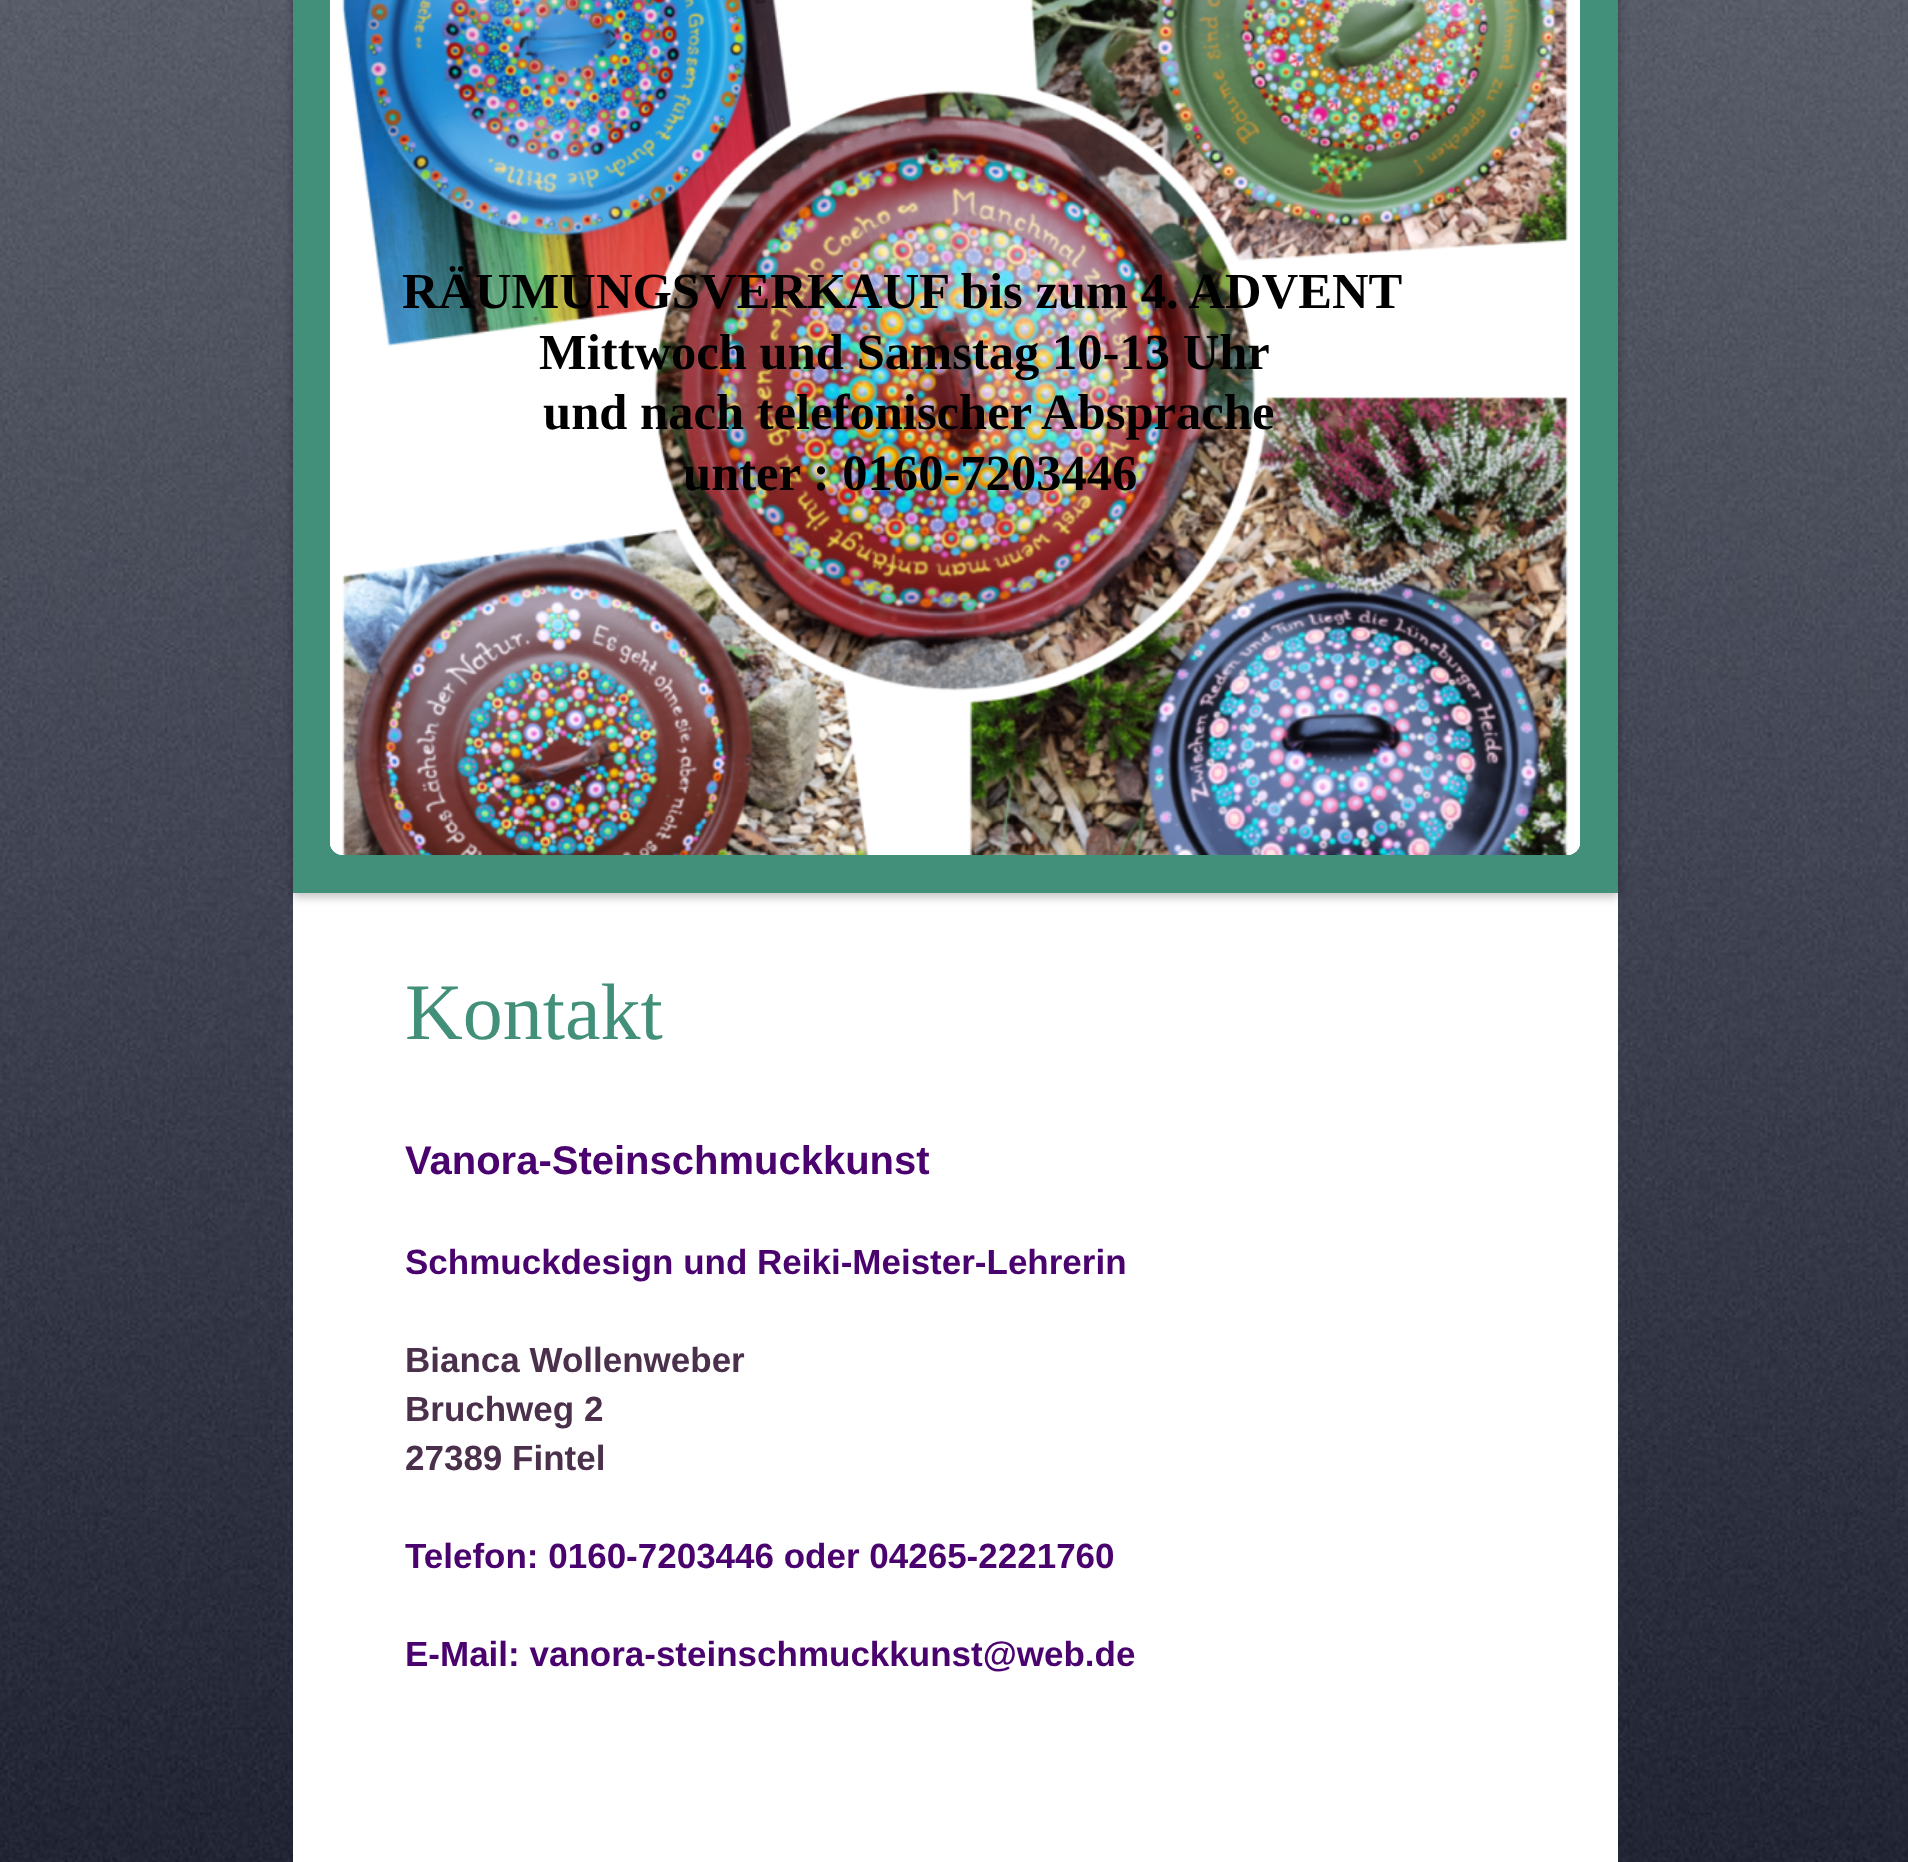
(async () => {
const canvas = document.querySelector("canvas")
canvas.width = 1908
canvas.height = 1862
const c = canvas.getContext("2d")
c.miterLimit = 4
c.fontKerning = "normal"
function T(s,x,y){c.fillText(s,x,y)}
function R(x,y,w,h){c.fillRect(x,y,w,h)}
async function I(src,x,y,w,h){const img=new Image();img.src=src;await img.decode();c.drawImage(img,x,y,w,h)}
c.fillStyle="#fff"
R(0,0,1908,1862)
await I("1.png",0,0,1908,1862)
R(293,893,1325,969)
c.fillStyle="#00000026"
c.filter="blur(5px)"
c.beginPath()
c.rect(293,-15,1325,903)
c.fill()
c.filter="none"
c.fillStyle="#00000033"
c.filter="blur(4px)"
c.beginPath()
c.rect(293,-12,1325,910)
c.fill()
c.filter="none"
c.fillStyle="#43907a"
R(293,0,1325,893)
await I("3.png",330,843,1250,12)
await I("2.png",330,0,1250,855)
c.font="bold 50.6px Liberation Serif"
c.fillStyle="#000"
T("RÄUMUNGSVERKAUF bis zum 4. ADVENT",402,308)
T("Mittwoch und Samstag 10-13 Uhr",539,369)
T("und nach telefonischer Absprache",543,429)
T("unter : 0160-7203446",683,490)
c.font="80px Liberation Serif"
c.fillStyle="#43907a"
T("Kontakt",405,1039)
c.font="bold 40px Liberation Sans"
c.fillStyle="#4a026e"
T("Vanora-Steinschmuckkunst",405,1174)
c.font="bold 35px Liberation Sans"
T("Schmuckdesign und Reiki-Meister-Lehrerin",405,1274)
c.fillStyle="#4b304b"
T("Bianca Wollenweber",405,1372)
T("Bruchweg 2",405,1421)
T("27389 Fintel",405,1470)
c.fillStyle="#4a026e"
T("Telefon: 0160-7203446 oder 04265-2221760",405,1568)
T("E-Mail: vanora-steinschmuckkunst@web.de",405,1666)
})()
